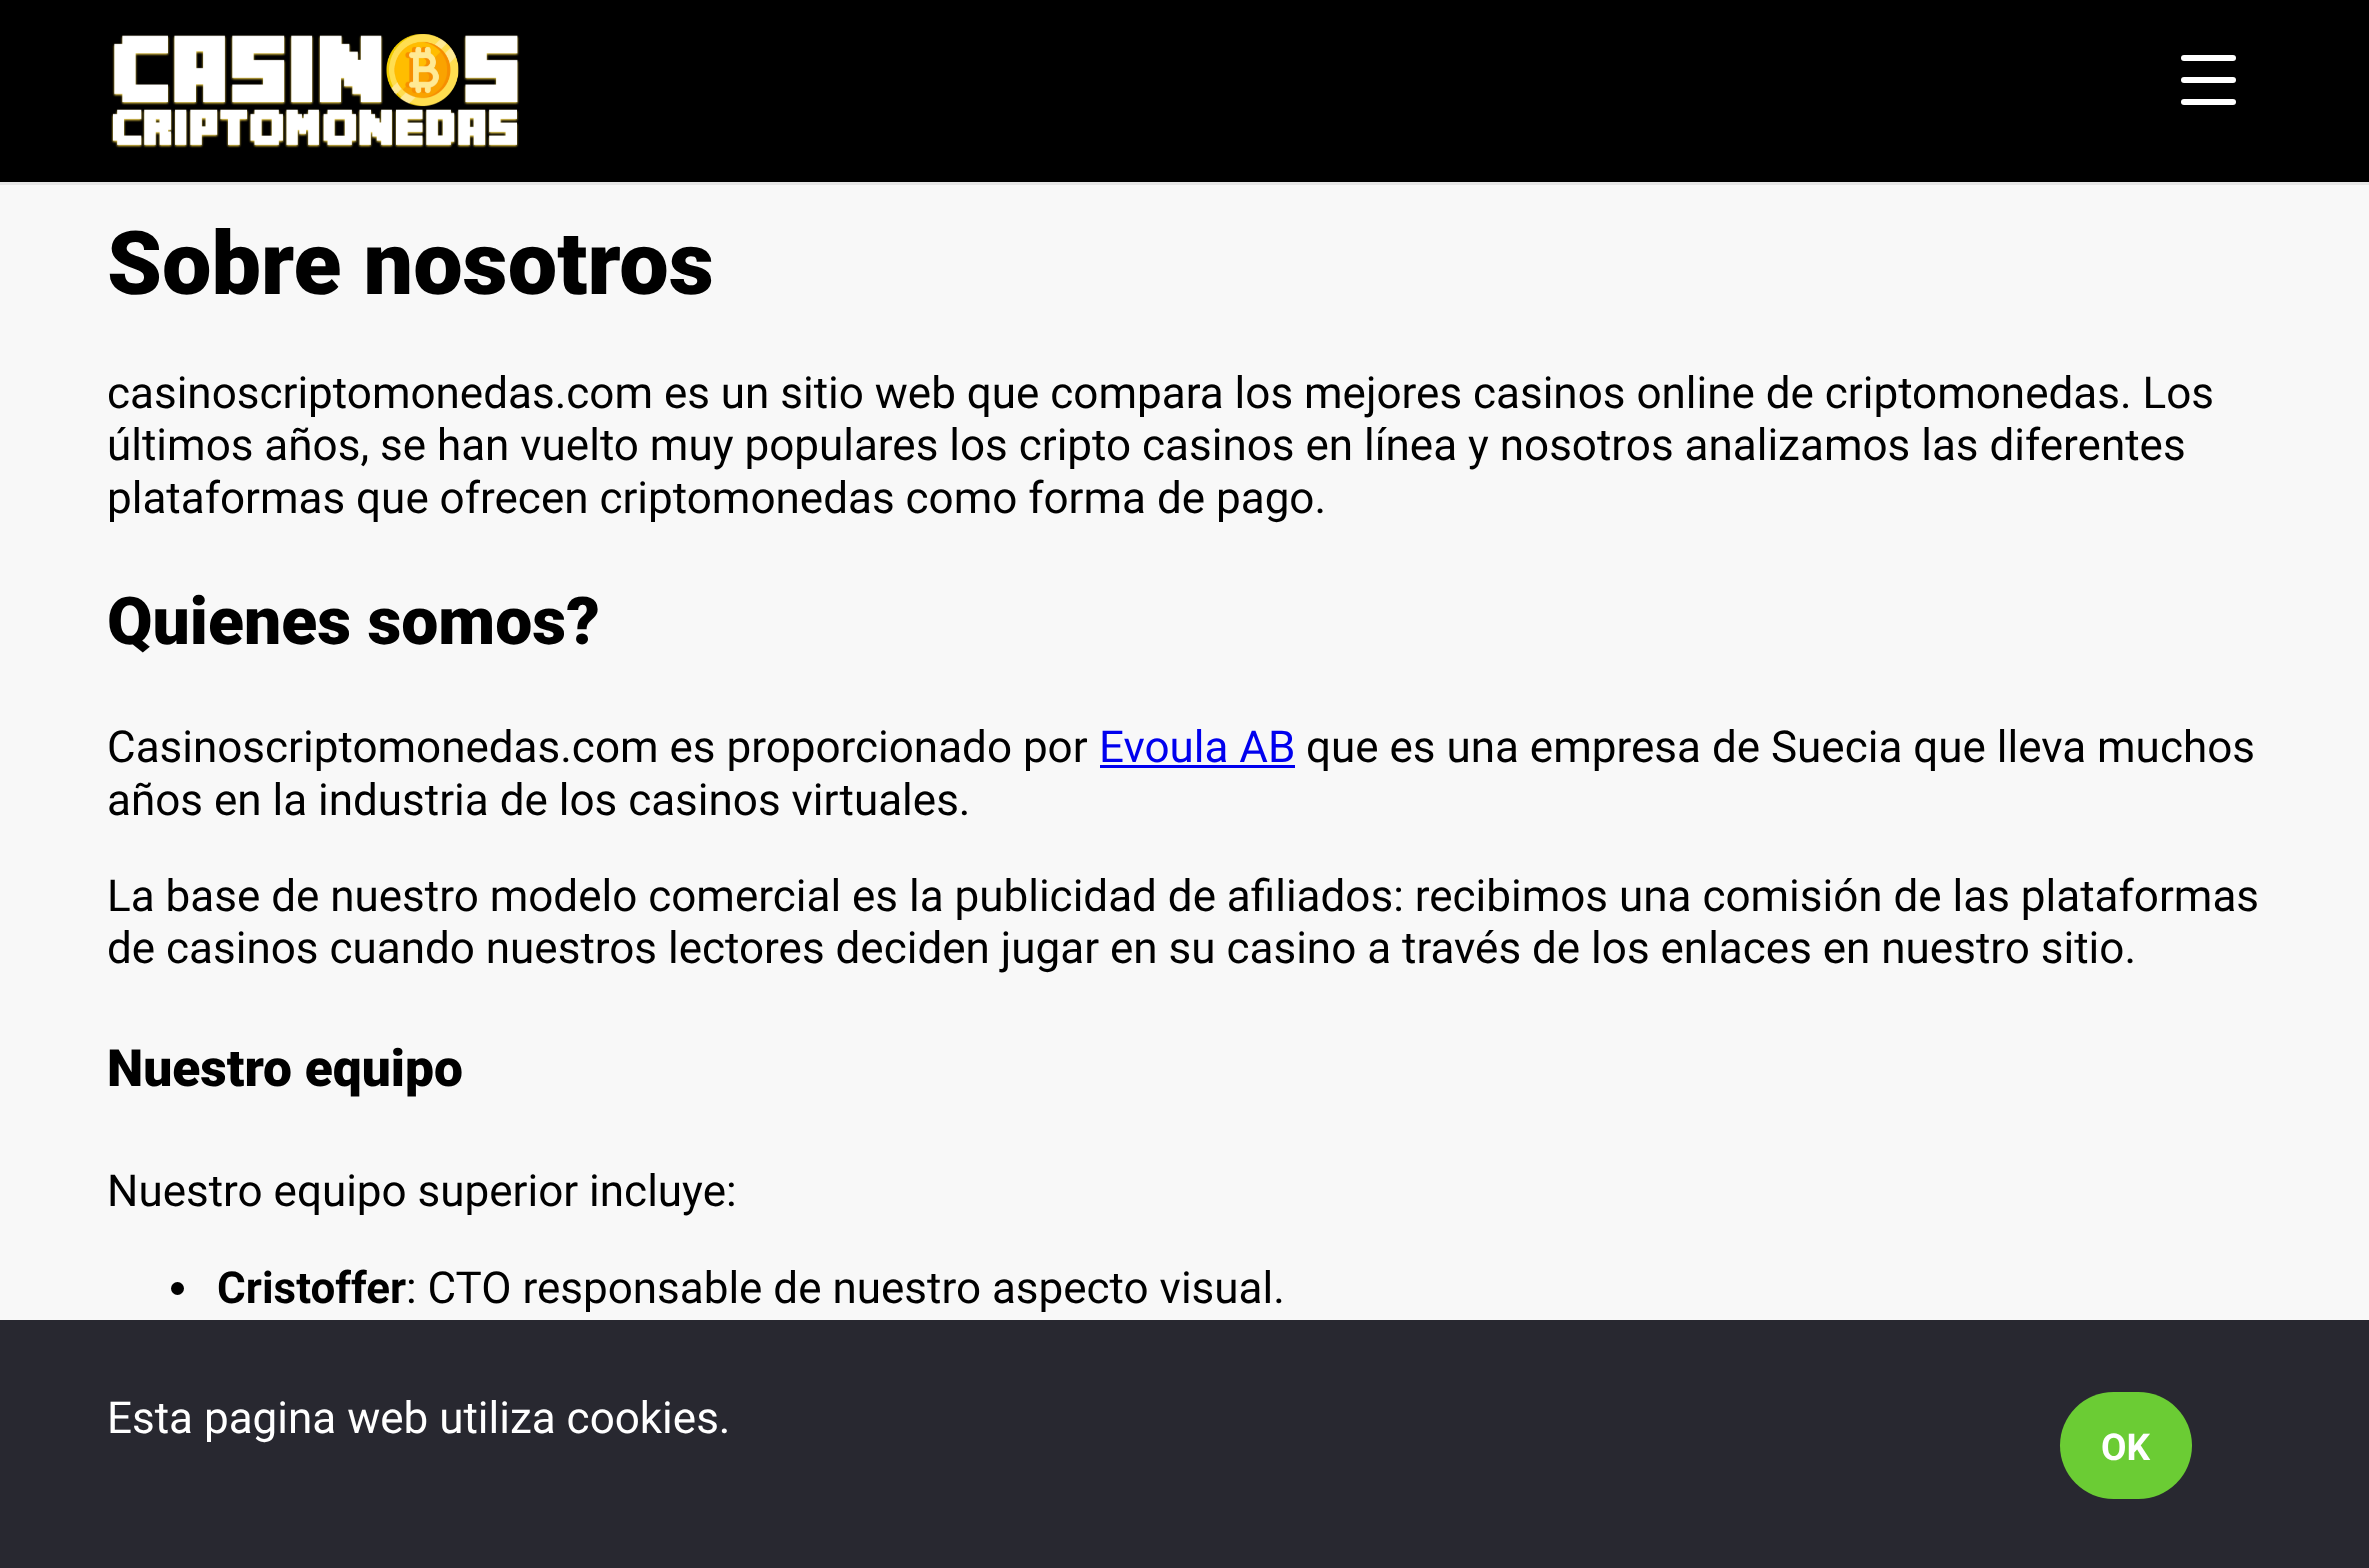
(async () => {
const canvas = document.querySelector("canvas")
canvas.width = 2369
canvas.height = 1568
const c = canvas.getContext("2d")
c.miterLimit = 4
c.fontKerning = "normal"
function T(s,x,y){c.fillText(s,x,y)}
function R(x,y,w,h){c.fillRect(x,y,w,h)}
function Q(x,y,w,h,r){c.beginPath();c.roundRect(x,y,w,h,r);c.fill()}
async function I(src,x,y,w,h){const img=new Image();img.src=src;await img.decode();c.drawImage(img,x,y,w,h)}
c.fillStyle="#f8f8f8"
R(0,0,2369,1568)
c.fillStyle="#000"
R(0,0,2369,182)
c.fillStyle="#e6e6e6"
R(0,182,2369,3)
await I("1.png",111,34,409,114)
c.fillStyle="#fff"
Q(2181,55,55,6,3)
Q(2181,77,55,6,3)
Q(2181,99,55,6,3)
c.font="900 88px Roboto"
c.fillStyle="#000"
T("Sobre nosotros",107,294)
c.font="44px Roboto"
T("casinoscriptomonedas.com es un sitio web que compara los mejores casinos online de criptomonedas. Los",107,408)
T("últimos años, se han vuelto muy populares los cripto casinos en línea y nosotros analizamos las diferentes",107,460)
T("plataformas que ofrecen criptomonedas como forma de pago.",107,513)
c.font="900 66px Roboto"
T("Quienes somos?",107,644)
c.font="44px Roboto"
T("Casinoscriptomonedas.com es proporcionado por",107,762)
c.fillStyle="#00e"
T("Evoula AB",1099,762)
R(1100,765,195,3)
c.fillStyle="#000"
T("que es una empresa de Suecia que lleva muchos",1306,762)
T("años en la industria de los casinos virtuales.",107,815)
T("La base de nuestro modelo comercial es la publicidad de afiliados: recibimos una comisión de las plataformas",107,911)
T("de casinos cuando nuestros lectores deciden jugar en su casino a través de los enlaces en nuestro sitio.",107,963)
c.font="900 51.5px Roboto"
T("Nuestro equipo",107,1086)
c.font="44px Roboto"
T("Nuestro equipo superior incluye:",107,1206)
c.beginPath()
c.arc(177.5,1288.5,6.5,0,7)
c.fill()
c.font="bold 44px Roboto"
T("Cristoffer",217,1303)
c.font="44px Roboto"
T(": CTO responsable de nuestro aspecto visual.",406,1303)
c.fillStyle="#282830"
R(0,1320,2369,248)
c.fillStyle="#fff"
T("Esta pagina web utiliza cookies.",107,1433)
c.fillStyle="#6bcc34"
Q(2060,1392,132,107,53.5)
c.font="bold 37px Roboto"
c.fillStyle="#fff"
T("OK",2101,1460)
})()
